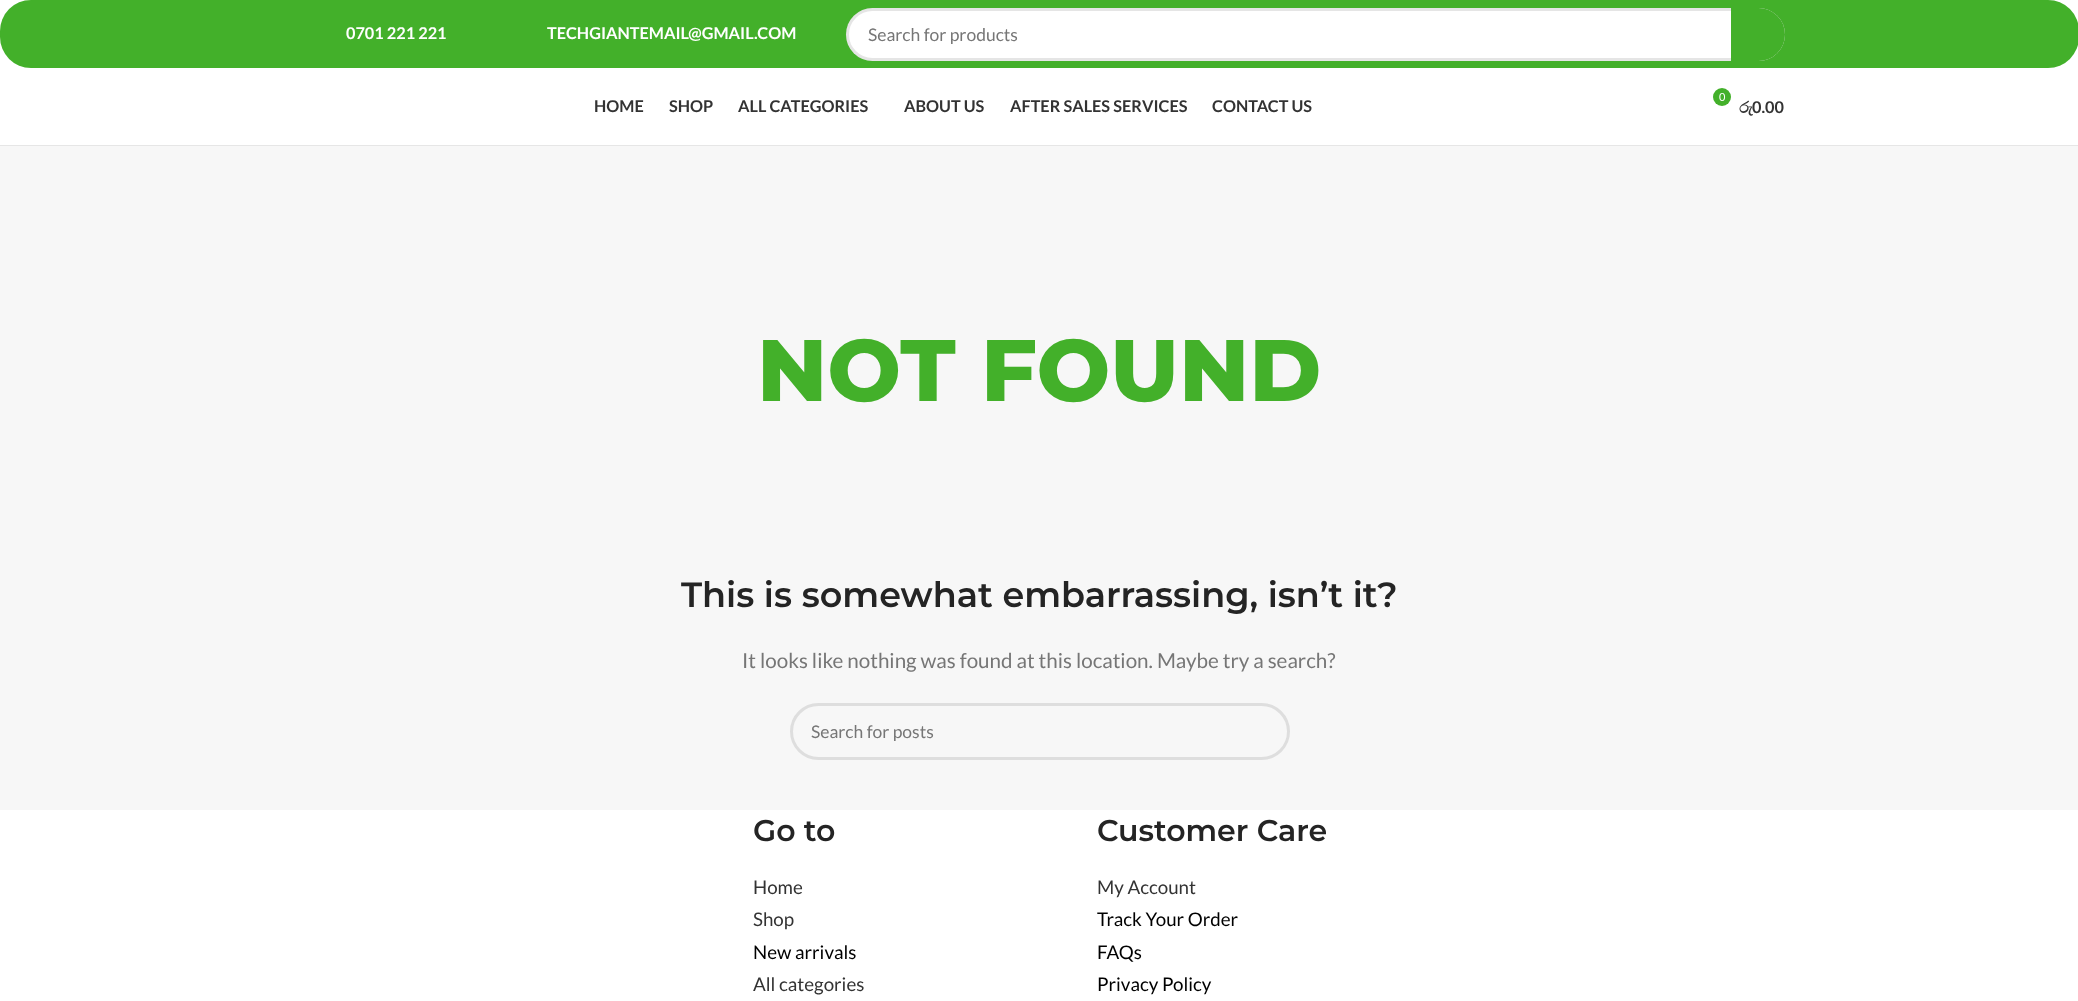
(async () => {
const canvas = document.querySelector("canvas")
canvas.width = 2078
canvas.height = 1001
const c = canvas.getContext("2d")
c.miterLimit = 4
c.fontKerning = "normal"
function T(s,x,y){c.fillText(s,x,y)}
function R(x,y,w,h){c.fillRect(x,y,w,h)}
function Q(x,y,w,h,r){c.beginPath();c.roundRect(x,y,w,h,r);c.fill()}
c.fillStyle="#fff"
R(0,0,2078,1001)
c.fillStyle="#43b02a"
Q(0,0,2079,68,31)
c.font="bold 16.25px Lato"
c.fillStyle="#fff"
T("0701 221 221",346,39)
T("TECHGIANTEMAIL@GMAIL.COM",547,39)
Q(846,8,939,53,26.5)
c.beginPath()
c.roundRect(847.5,9.5,936,50,25)
c.strokeStyle="#0000001a"
c.lineWidth=3
c.stroke()
c.font="17.5px Lato"
c.fillStyle="#767676"
T("Search for products",868,41)
c.fillStyle="#43b02a"
c.beginPath()
c.roundRect(1731,8,54,53,[0,26.5,26.5,0])
c.fill()
c.fillStyle="#e6e6e6"
R(0,145,2078,1)
c.font="bold 16.25px Lato"
c.fillStyle="#333"
T("HOME",594,112)
T("SHOP",669,112)
T("ALL CATEGORIES",738,112)
T("ABOUT US",904,112)
T("AFTER SALES SERVICES",1010,112)
T("CONTACT US",1212,112)
c.fillStyle="#43b02a"
c.beginPath()
c.arc(1722,97,9,0,7)
c.fill()
c.font="11px Lato"
c.fillStyle="#fff"
T("0",1719,101)
c.font="bold 16.25px FreeSerif"
c.fillStyle="#333"
T("රු",1739,113)
c.font="bold 16.25px Lato"
T("0.00",1752,113)
c.fillStyle="#f7f7f7"
R(0,146,2078,664)
c.font="800 87.25px Montserrat"
c.fillStyle="#43b02a"
T("NOT FOUND",757,401)
c.font="600 35px Montserrat"
c.fillStyle="#242424"
T("This is somewhat embarrassing, isn’t it?",681,607)
c.font="20.6px Lato"
c.fillStyle="#767676"
T("It looks like nothing was found at this location. Maybe try a search?",742,668)
c.beginPath()
c.roundRect(791.5,704.5,497,54,27)
c.strokeStyle="#dedede"
c.stroke()
c.font="17.5px Lato"
T("Search for posts",811,738)
c.font="600 30px Montserrat"
c.fillStyle="#242424"
T("Go to",753,841)
c.font="18.75px Lato"
c.fillStyle="#333"
T("Home",753,894)
T("Shop",753,926)
c.fillStyle="#000"
T("New arrivals",753,959)
c.fillStyle="#333"
T("All categories",753,991)
c.font="600 30px Montserrat"
c.fillStyle="#242424"
T("Customer Care",1097,841)
c.font="18.75px Lato"
c.fillStyle="#333"
T("My Account",1097,894)
c.fillStyle="#000"
T("Track Your Order",1097,926)
T("FAQs",1097,959)
T("Privacy Policy",1097,991)
})()
